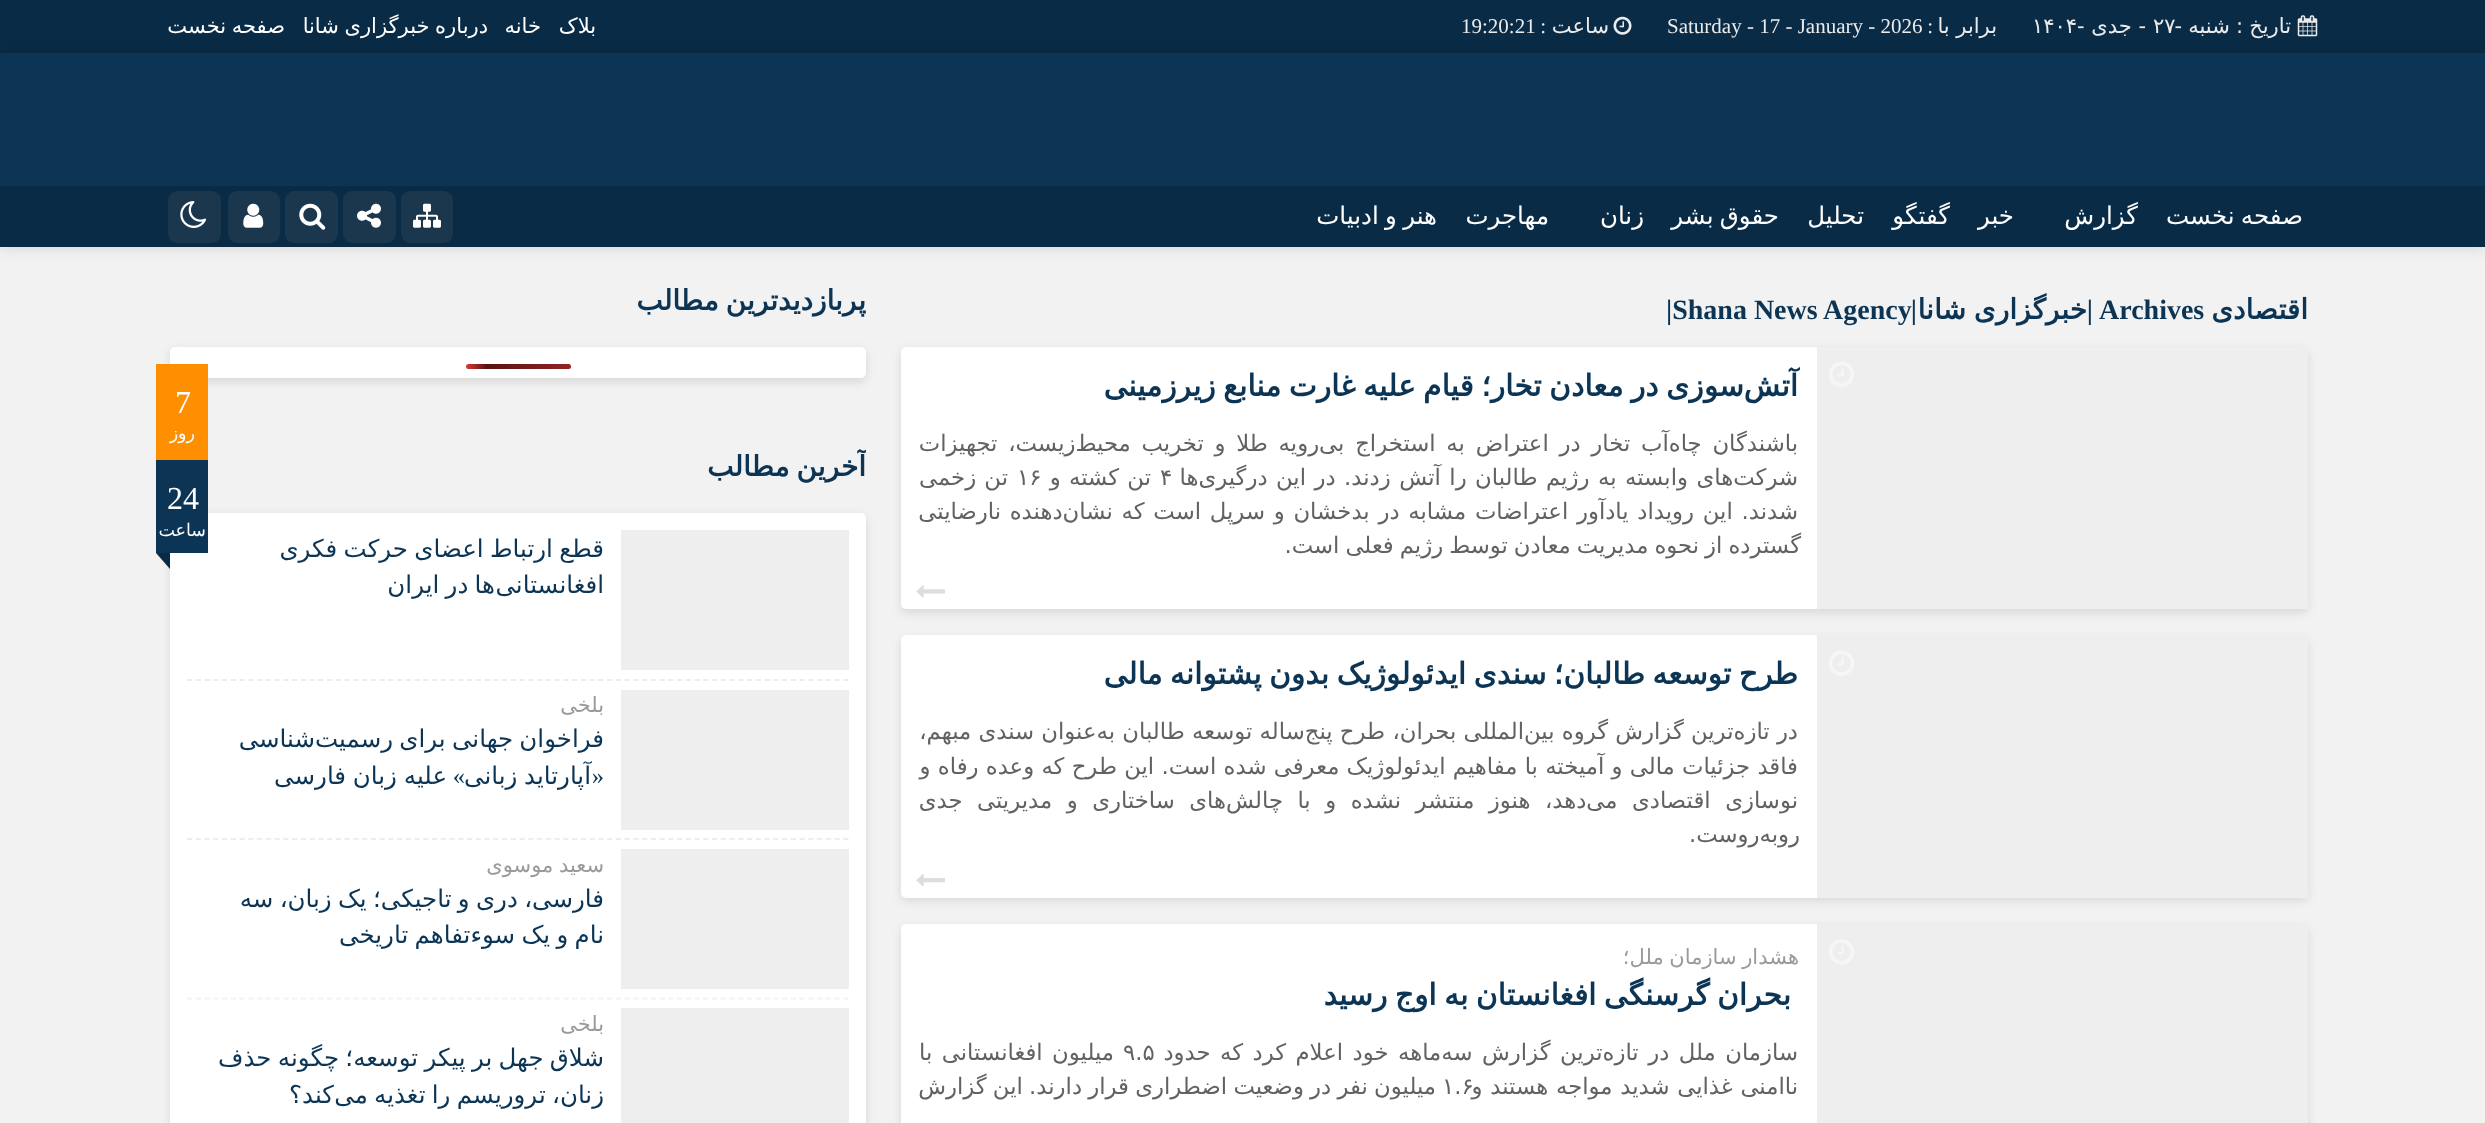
(async () => {
const canvas = document.querySelector("canvas")
canvas.width = 2485
canvas.height = 1123
const c = canvas.getContext("2d")
c.miterLimit = 4
c.fontKerning = "normal"
function T(s,x,y){c.fillText(s,x,y)}
function R(x,y,w,h){c.fillRect(x,y,w,h)}
function Q(x,y,w,h,r){c.beginPath();c.roundRect(x,y,w,h,r);c.fill()}
async function I(src,x,y,w,h){const img=new Image();img.src=src;await img.decode();c.drawImage(img,x,y,w,h)}
let gradient, path
c.fillStyle="#f2f2f2"
R(0,0,2485,1123)
c.fillStyle="#0a2b45"
R(0,0,2485,53)
await I("1.png",2297,15,21,22)
c.wordSpacing="-0.5px"
c.direction="rtl"
c.font="21px DejaVu Sans"
c.fillStyle="#ebebeb"
T("تاریخ : شنبه -",2291,33)
c.wordSpacing="0px"
c.direction="ltr"
T("۲۷",2153,33)
c.direction="rtl"
T("- جدی -",2146,33)
c.direction="ltr"
T("۱۴۰۴",2032,33)
c.direction="rtl"
T("برابر با",1997,33)
c.font="21px Liberation Serif"
T(":",1933,33)
c.direction="ltr"
T("Saturday - 17 - January - 2026",1667,33)
await I("2.png",1613,16,19,19)
c.direction="rtl"
c.font="21px DejaVu Sans"
T("ساعت",1609,33)
c.font="21px Liberation Serif"
T(":",1546,33)
c.direction="ltr"
T("19:20:21",1461,33)
c.fillStyle="#0000001a"
c.filter="blur(7px)"
c.beginPath()
c.rect(0,54,2485,195)
c.fill()
c.filter="none"
c.direction="rtl"
c.font="21px DejaVu Sans"
c.fillStyle="#fff"
T("بلاک",596,33)
T("خانه",541,33)
c.wordSpacing="-1px"
T("درباره خبرگزاری شانا",488,33)
T("صفحه نخست",285,33)
c.fillStyle="#0c3555"
R(0,53,2485,133)
c.fillStyle="#0a2b45"
R(0,186,2485,61)
c.wordSpacing="-1.5px"
c.font="24.5px DejaVu Sans"
c.fillStyle="#fff"
T("صفحه نخست",2303,224)
c.wordSpacing="0px"
T("گزارش",2138,224)
T("خبر",2014,224)
T("گفتگو",1950,224)
T("تحلیل",1864,224)
c.wordSpacing="-1.5px"
T("حقوق بشر",1779,224)
c.wordSpacing="0px"
T("زنان",1644,224)
T("مهاجرت",1549,224)
c.wordSpacing="-1.5px"
T("هنر و ادبیات",1437,224)
c.fillStyle="#1b374e"
Q(401,191,52,52,9)
await I("3.png",413,203,28,25)
Q(343,191,53,52,9)
await I("4.png",357,203,24,25)
Q(285,191,53,52,9)
await I("5.png",299,203,27,27)
Q(228,191,52,52,9)
await I("6.png",243,203,21,25)
Q(168,191,53,52,9)
await I("7.png",180,201,27,27)
c.wordSpacing="0px"
c.font="bold 28px DejaVu Sans"
c.fillStyle="#0c3555"
T("اقتصادی",2308,319)
c.direction="ltr"
c.font="bold 28px Liberation Serif"
T("Archives",2099,319)
c.direction="rtl"
T("|",2093,319)
c.wordSpacing="-1px"
c.font="bold 28px DejaVu Sans"
T("خبرگزاری شانا",2087,319)
c.wordSpacing="0px"
c.font="bold 28px Liberation Serif"
T("|",1917,319)
c.direction="ltr"
T("|Shana News Agency",1666,319)
c.fillStyle="#0000001a"
c.filter="blur(5px)"
c.beginPath()
c.roundRect(901,350,1407,263,5)
c.fill()
c.filter="none"
c.fillStyle="#fff"
Q(901,347,1407,262,5)
c.fillStyle="#eee"
R(1817,347,491,262)
await I("8.png",1829,362,25,25)
c.wordSpacing="-2px"
c.direction="rtl"
c.font="bold 29.75px DejaVu Sans"
c.fillStyle="#0c3555"
T("سوزی در معادن تخار؛ قیام علیه غارت منابع زیرزمینی",1744,396)
c.wordSpacing="0px"
T("آتش",1798,396)
c.wordSpacing="3.5px"
c.font="22.75px DejaVu Sans"
c.fillStyle="#626262"
T("باشندگان چاه‌آب تخار در اعتراض به استخراج بی‌رویه طلا و تخریب محیط‌زیست، تجهیزات",1798,451)
c.wordSpacing="1.25px"
T("شرکت‌های وابسته به رژیم طالبان را آتش زدند. در این درگیری‌ها",1798,485)
c.wordSpacing="0px"
c.direction="ltr"
T("۴",1160,485)
c.wordSpacing="1px"
c.direction="rtl"
T("تن کشته و",1151,485)
c.wordSpacing="0px"
c.direction="ltr"
T("۱۶",1017,485)
c.wordSpacing="1px"
c.direction="rtl"
T("تن زخمی",1008,485)
c.wordSpacing="1.5px"
T("شدند. این رویداد یادآور اعتراضات مشابه در بدخشان و سرپل است که نشان‌دهنده نارضایتی",1798,519)
c.wordSpacing="-1.25px"
T("گسترده از نحوه مدیریت معادن توسط رژیم فعلی است.",1801,553)
await I("9.png",916,585,29,13)
c.fillStyle="#0000001a"
c.filter="blur(5px)"
c.beginPath()
c.roundRect(901,639,1407,262,5)
c.fill()
c.filter="none"
c.fillStyle="#fff"
Q(901,635,1407,263,5)
c.fillStyle="#eee"
R(1817,635,491,263)
await I("10.png",1829,650,25,26)
c.wordSpacing="-2px"
c.font="bold 29.75px DejaVu Sans"
c.fillStyle="#0c3555"
T("طرح توسعه طالبان؛ سندی ایدئولوژیک بدون پشتوانه مالی",1798,684)
c.wordSpacing="0px"
c.font="22.75px DejaVu Sans"
c.fillStyle="#626262"
T("در تازه‌ترین گزارش گروه بین‌المللی بحران، طرح پنج‌ساله توسعه طالبان به‌عنوان سندی مبهم،",1798,739)
T("فاقد جزئیات مالی و آمیخته با مفاهیم ایدئولوژیک معرفی شده است. این طرح که وعده رفاه و",1798,774)
c.wordSpacing="7.25px"
T("نوسازی اقتصادی می‌دهد، هنوز منتشر نشده و با چالش‌های ساختاری و مدیریتی جدی",1798,808)
c.wordSpacing="0px"
T("روبه‌روست.",1800,842)
await I("11.png",916,874,29,13)
c.fillStyle="#0000001a"
c.filter="blur(5px)"
c.beginPath()
c.roundRect(901,928,1407,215,5)
c.fill()
c.filter="none"
c.fillStyle="#fff"
Q(901,924,1407,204,5)
c.fillStyle="#eee"
R(1817,924,491,199)
await I("12.png",1829,939,25,26)
c.wordSpacing="-1px"
c.font="21px DejaVu Sans"
c.fillStyle="#9a9a9a"
T("هشدار سازمان ملل؛",1799,964)
c.wordSpacing="-2px"
c.font="bold 29.75px DejaVu Sans"
c.fillStyle="#0c3555"
T("بحران گرسنگی افغانستان به اوج رسید",1791,1005)
c.wordSpacing="2.25px"
c.font="22.75px DejaVu Sans"
c.fillStyle="#626262"
T("سازمان ملل در تازه‌ترین گزارش سه‌ماهه خود اعلام کرد که حدود",1798,1060)
c.wordSpacing="0px"
c.direction="ltr"
T("۹.۵",1123,1060)
c.wordSpacing="2.25px"
c.direction="rtl"
T("میلیون افغانستانی با",1114,1060)
c.wordSpacing="0px"
c.direction="ltr"
T("۱.۶",1442,1094)
c.wordSpacing="0.5px"
c.direction="rtl"
T("ناامنی غذایی شدید مواجه هستند و",1798,1094)
c.wordSpacing="-1px"
T("میلیون نفر در وضعیت اضطراری قرار دارند. این گزارش",1436,1094)
c.save()
c.beginPath()
c.rect(170,273,696,56)
c.clip()
c.wordSpacing="-2px"
c.font="bold 28px DejaVu Sans"
c.fillStyle="#0c3555"
T("پربازدیدترین مطالب",866,310)
c.restore()
c.fillStyle="#0000001a"
c.filter="blur(5px)"
c.beginPath()
c.roundRect(170,350,696,32,5)
c.fill()
c.filter="none"
c.fillStyle="#fff"
Q(170,347,696,31,5)
gradient = c.createLinearGradient(466,367,676,367)
gradient.addColorStop(0,"#dd3737")
gradient.addColorStop(.1,"#571313")
gradient.addColorStop(1,"#dd3737")
c.fillStyle = gradient
Q(466,364,105,5,2.5)
c.fillStyle="#0000001a"
c.filter="blur(5px)"
c.beginPath()
c.roundRect(170,516,696,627,5)
c.fill()
c.filter="none"
c.fillStyle="#fff"
Q(170,513,696,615,5)
c.fillStyle="#0c3555"
R(156,460,52,93)
c.fillStyle="#fe8f00"
R(156,364,52,96)
c.wordSpacing="0px"
c.direction="ltr"
c.font="32px Liberation Serif"
c.fillStyle="#fff"
T("7",175,413)
c.direction="rtl"
c.font="17.5px DejaVu Sans"
T("روز",195,439)
c.direction="ltr"
c.font="32px Liberation Serif"
T("24",167,509)
c.direction="rtl"
c.font="17.5px DejaVu Sans"
T("ساعت",206,536)
c.fillStyle="#0a2b45"
path = new Path2D("M156 553h14v16z")
c.fill(path)
c.save()
c.beginPath()
c.rect(170,439,696,56)
c.clip()
c.wordSpacing="-2px"
c.font="bold 28px DejaVu Sans"
c.fillStyle="#0c3555"
T("آخرین مطالب",866,476)
c.restore()
path = new Path2D("M187 680h662")
c.strokeStyle="#ededed"
c.lineWidth=1.8
c.setLineDash([5.25,3.5])
c.stroke(path)
c.fillStyle="#eee"
R(621,530,228,140)
c.save()
c.beginPath()
c.rect(205,530,399,74)
c.clip()
c.wordSpacing="-1.5px"
c.font="24.5px DejaVu Sans"
c.fillStyle="#0c3555"
T("قطع ارتباط اعضای حرکت فکری",604,557)
c.restore()
c.wordSpacing="-1.5px"
c.font="24.5px DejaVu Sans"
c.fillStyle="#0c3555"
T("ها در ایران",495,593)
c.wordSpacing="0px"
T("افغانستانی",604,593)
path = new Path2D("M187 839h662")
c.stroke(path)
c.fillStyle="#eee"
R(621,690,228,140)
c.font="21px DejaVu Sans"
c.fillStyle="#9a9a9a"
T("بلخی",604,712)
c.save()
c.beginPath()
c.rect(205,721,399,74)
c.clip()
c.wordSpacing="-1.5px"
c.font="24.5px DejaVu Sans"
c.fillStyle="#0c3555"
T("فراخوان جهانی برای رسمیت",604,747)
c.restore()
c.font="24.5px DejaVu Sans"
c.fillStyle="#0c3555"
T("شناسی",315,747)
c.wordSpacing="-1px"
T("آپارتاید زبانی",591,784)
c.wordSpacing="0px"
c.font="24.5px Liberation Serif"
T("«",604,784)
T("»",465,784)
c.wordSpacing="-1px"
c.font="24.5px DejaVu Sans"
T("علیه زبان فارسی",447,784)
path = new Path2D("M187 998.5h662")
c.strokeStyle="#f3f3f3"
c.stroke(path)
c.fillStyle="#eee"
R(621,849,228,140)
c.font="21px DejaVu Sans"
c.fillStyle="#9a9a9a"
T("سعید موسوی",604,872)
c.save()
c.beginPath()
c.rect(205,880,399,74)
c.clip()
c.wordSpacing="-1.5px"
c.font="24.5px DejaVu Sans"
c.fillStyle="#0c3555"
T("فارسی، دری و تاجیکی؛ یک زبان، سه",604,907)
T("نام و یک سوءتفاهم تاریخی",604,943)
c.restore()
c.fillStyle="#eee"
R(621,1008,228,115)
c.wordSpacing="0px"
c.fillStyle="#9a9a9a"
T("بلخی",604,1031)
c.save()
c.beginPath()
c.rect(205,1040,399,73)
c.clip()
c.wordSpacing="-1.5px"
c.font="24.5px DejaVu Sans"
c.fillStyle="#0c3555"
T("شلاق جهل بر پیکر توسعه؛ چگونه حذف",604,1066)
T("زنان، تروریسم را تغذیه می",604,1103)
c.restore()
c.font="24.5px DejaVu Sans"
c.fillStyle="#0c3555"
T("کند؟",334,1103)
})()
